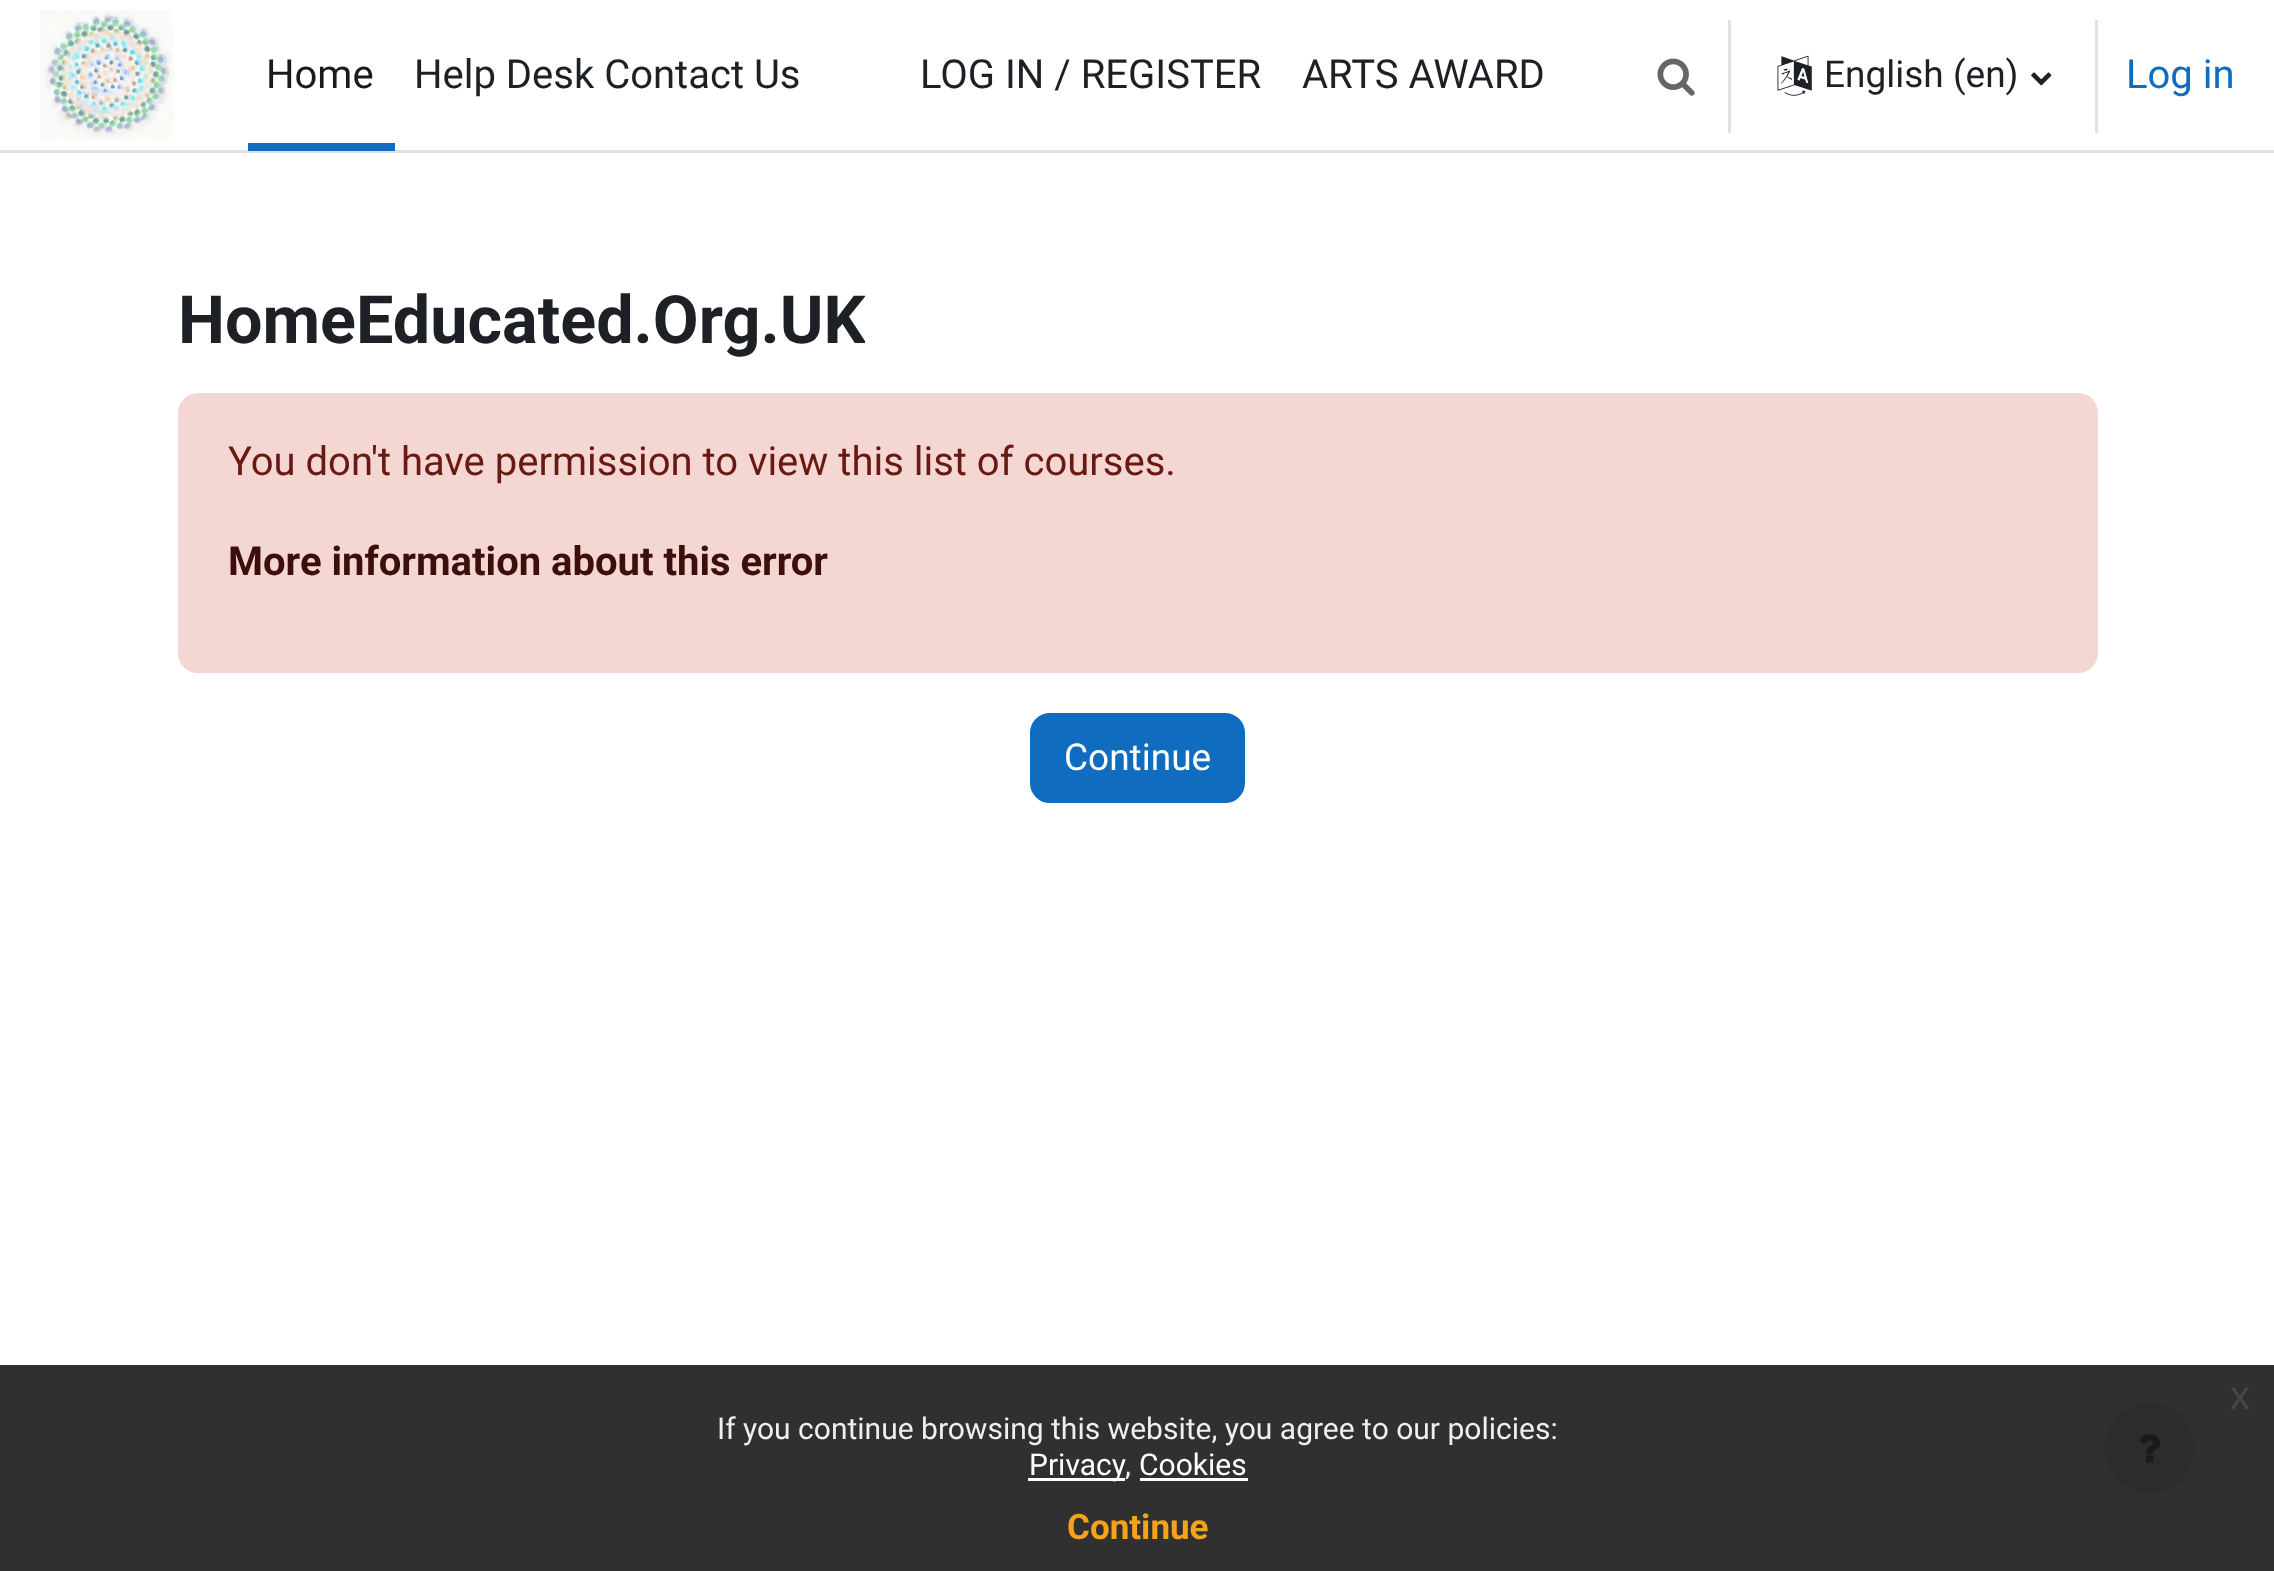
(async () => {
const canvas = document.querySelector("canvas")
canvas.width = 2274
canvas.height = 1571
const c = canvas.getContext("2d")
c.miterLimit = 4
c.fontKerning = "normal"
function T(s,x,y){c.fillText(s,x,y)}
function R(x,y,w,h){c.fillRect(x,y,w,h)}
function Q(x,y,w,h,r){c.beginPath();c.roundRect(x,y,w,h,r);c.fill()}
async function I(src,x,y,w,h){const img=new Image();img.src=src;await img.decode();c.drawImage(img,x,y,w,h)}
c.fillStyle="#fff"
R(0,0,2274,1571)
c.fillStyle="#303030"
R(0,1365,2274,206)
c.fillStyle="#dee2e6"
R(0,150,2274,3)
await I("1.png",40,10,135,130)
c.fillStyle="#0f6cbf"
R(248,143,147,8)
c.font="40px Roboto"
c.fillStyle="#1a1a1a"
T("Home",266,88)
c.fillStyle="#1d2125"
T("Help Desk Contact Us",414,88)
T("LOG IN / REGISTER",920,88)
T("ARTS AWARD",1302,88)
await I("2.png",1657,58,38,38)
c.fillStyle="#dee2e6"
R(1728,20,3,113)
await I("3.png",1777,55,35,41)
c.font="37px Roboto"
c.fillStyle="#1d2125"
T("English (en)",1824,87)
await I("4.png",2031,72,21,14)
c.fillStyle="#dee2e6"
R(2095,20,3,113)
c.font="40px Roboto"
c.fillStyle="#0f6cbf"
T("Log in",2126,88)
c.save()
c.beginPath()
c.rect(178,270,687,120)
c.clip()
c.font="bold 66.5px Roboto"
c.fillStyle="#1d2125"
T("HomeEducated.Org.UK",178,343)
c.restore()
c.fillStyle="#f4d6d2"
Q(178,393,1920,280,20)
c.fillStyle="#691911"
T("You don't have permission to view this list of courses.",228,475)
c.font="bold 40px Roboto"
c.fillStyle="#3d0f0a"
T("More information about this error",228,575)
c.fillStyle="#0f6cbf"
c.beginPath()
c.roundRect(1031.5,714.5,212,87,18.5)
c.fill()
c.strokeStyle="#0f6cbf"
c.lineWidth=3
c.stroke()
c.font="37px Roboto"
c.fillStyle="#fff"
T("Continue",1064,770)
c.fillStyle="#2b2c2c"
c.beginPath()
c.arc(2150,1448,45,0,7)
c.fill()
await I("5.png",2139,1433,22,30)
c.font="40px Liberation Sans"
c.fillStyle="#474747"
T("x",2230,1409)
c.font="30px Roboto"
c.fillStyle="#efefef"
T("If you continue browsing this website, you agree to our policies:",717,1439)
c.fillStyle="#fff"
R(1028,1478,97,3)
T("Privacy",1029,1475)
c.fillStyle="#efefef"
T(",",1125,1475)
c.fillStyle="#fff"
R(1140,1478,108,3)
T("Cookies",1139,1475)
c.font="bold 35px Roboto"
c.fillStyle="#f6a21d"
T("Continue",1067,1539)
})()
